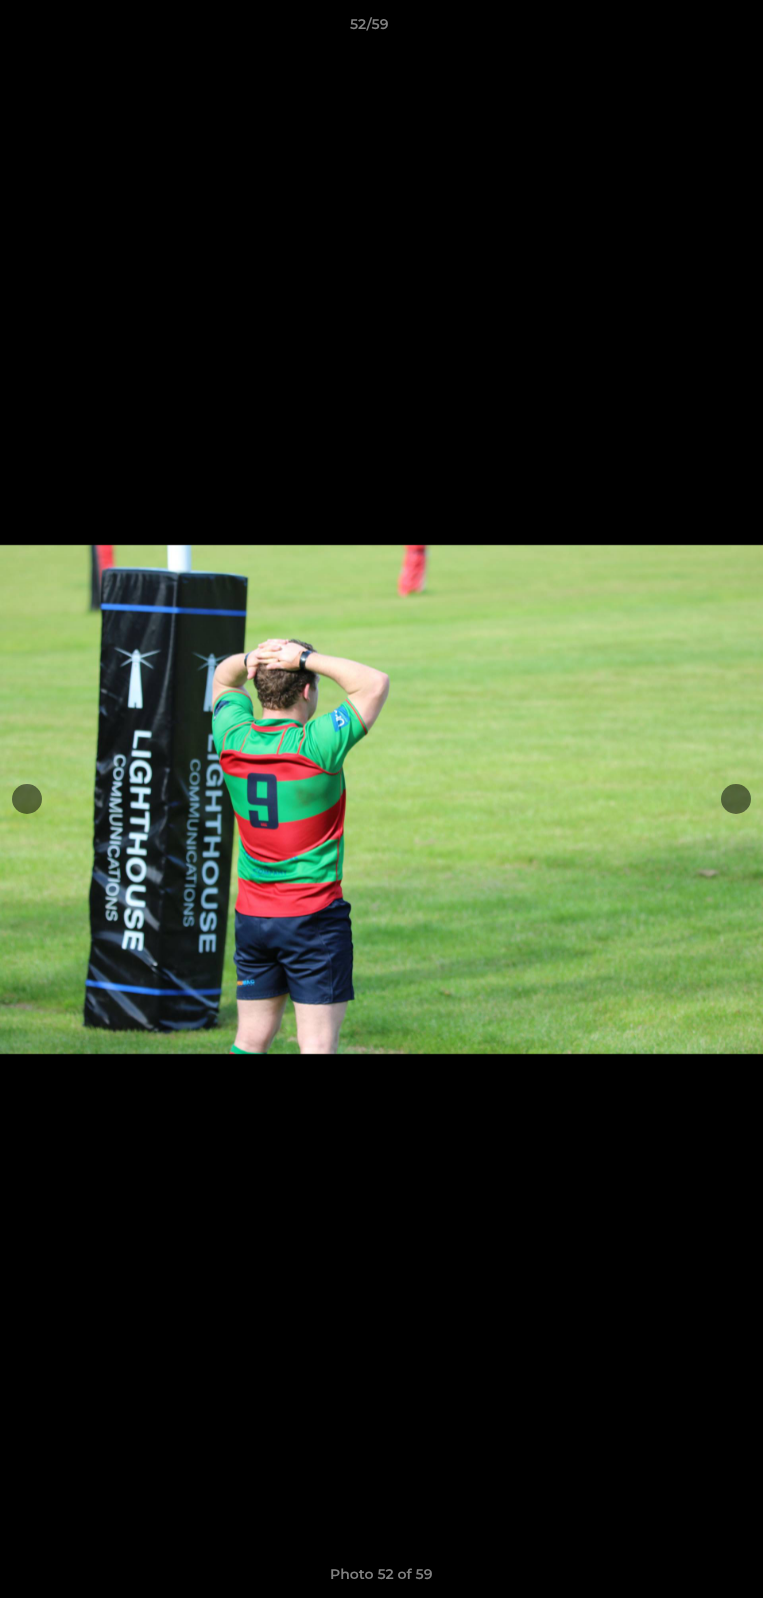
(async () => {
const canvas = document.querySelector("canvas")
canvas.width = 763
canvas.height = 1598
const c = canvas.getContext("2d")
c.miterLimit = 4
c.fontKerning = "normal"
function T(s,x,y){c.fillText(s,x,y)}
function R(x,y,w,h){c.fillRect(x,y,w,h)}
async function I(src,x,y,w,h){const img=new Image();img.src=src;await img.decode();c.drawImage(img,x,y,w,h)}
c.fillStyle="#000"
R(0,0,763,1598)
c.font="600 14px Montserrat"
c.fillStyle="#808080"
T("52/59",350,29)
await I("1.png",0,544,763,511)
c.fillStyle="#00000080"
c.beginPath()
c.arc(27,799,15,0,7)
c.fill()
c.beginPath()
c.arc(736,799,15,0,7)
c.fill()
c.fillStyle="#808080"
T("Photo 52 of 59",330,1579)
})()
